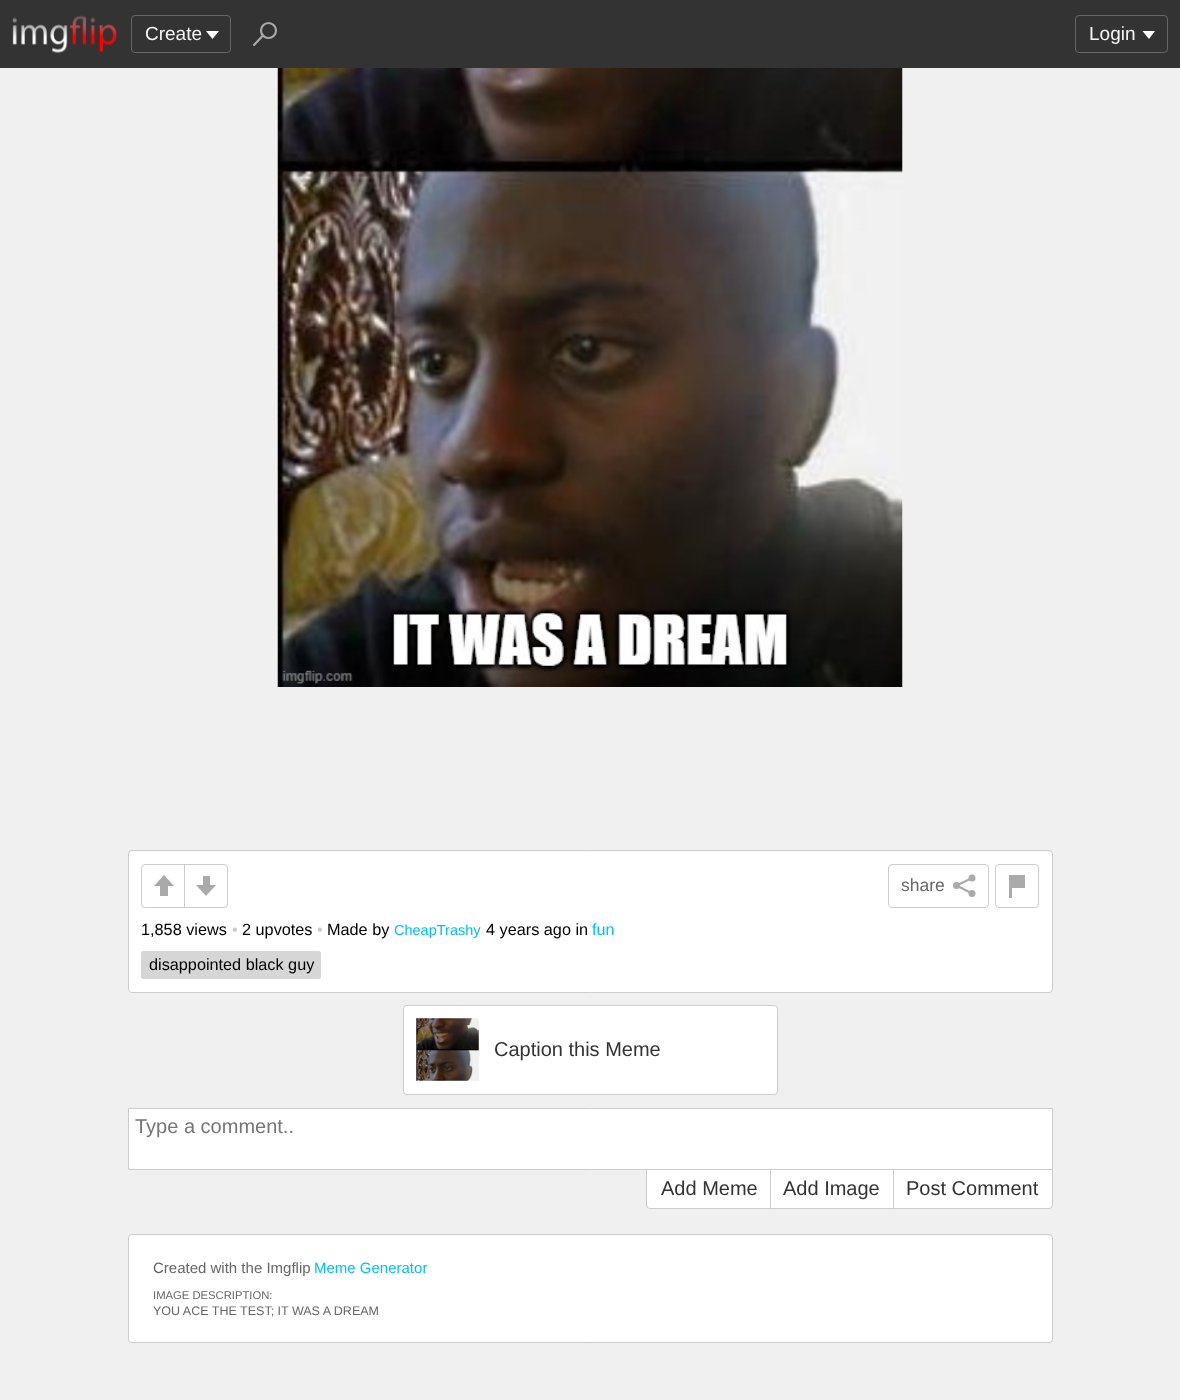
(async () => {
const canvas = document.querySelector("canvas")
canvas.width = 1180
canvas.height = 1400
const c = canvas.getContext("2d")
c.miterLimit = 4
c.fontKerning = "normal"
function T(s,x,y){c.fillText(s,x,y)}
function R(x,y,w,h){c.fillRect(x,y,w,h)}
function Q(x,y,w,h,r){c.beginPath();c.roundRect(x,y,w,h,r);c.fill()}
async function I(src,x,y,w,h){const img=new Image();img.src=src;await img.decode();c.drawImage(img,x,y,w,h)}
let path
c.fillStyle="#f0f0f0"
R(0,0,1180,1400)
c.fillStyle="#333"
R(0,0,1180,68)
await I("1.png",12,15,105,39)
c.beginPath()
c.roundRect(131.5,15.5,99,37,3.5)
c.strokeStyle="#666"
c.stroke()
c.font="19px Liberation Sans"
c.fillStyle="#f5f5f5"
T("Create",145,40)
c.fillStyle="#fff"
path = new Path2D("M206 31h13l-6.5 8z")
c.fill(path)
path = new Path2D("M254 45l9-9.5")
c.strokeStyle="#aaa"
c.lineWidth=2.2
c.lineCap="round"
c.stroke(path)
c.beginPath()
c.arc(268.5,30.5,7.5,0,7)
c.stroke()
c.beginPath()
c.roundRect(1075.5,15.5,92,37,3.5)
c.strokeStyle="#666"
c.lineWidth=1
c.stroke()
c.fillStyle="#f5f5f5"
T("Login",1089,40)
c.fillStyle="#fff"
path = new Path2D("M1142.5 31h12.5l-6 8z")
c.fill(path)
await I("2.png",277,68,626,619)
c.beginPath()
c.roundRect(128.5,850.5,924,142,3.5)
c.fill()
c.strokeStyle="#ccc"
c.stroke()
c.beginPath()
c.roundRect(141.5,864.5,43,43,[3.5,0,0,3.5])
c.stroke()
c.fillStyle="#aaa"
R(160,884,8,12)
path = new Path2D("M174 886h-20l10-11z")
c.fill(path)
c.fillStyle="#fff"
c.beginPath()
c.roundRect(184.5,864.5,43,43,[0,3.5,3.5,0])
c.fill()
c.stroke()
c.fillStyle="#aaa"
R(203,876,7,13)
path = new Path2D("M196 885h20l-10 11z")
c.fill(path)
c.beginPath()
c.roundRect(888.5,864.5,100,43,3.5)
c.stroke()
c.font="17.5px Liberation Sans"
c.fillStyle="#666"
T("share",901,891)
path = new Path2D("M972 878l-15.5 7.5l15.5 8")
c.strokeStyle="#aaa"
c.lineWidth=2.1
c.lineCap="butt"
c.stroke(path)
c.fillStyle="#aaa"
c.beginPath()
c.arc(972,878,3.5,0,7)
c.fill()
c.beginPath()
c.arc(956.5,885.5,3.5,0,7)
c.fill()
c.beginPath()
c.arc(972,893.5,3.5,0,7)
c.fill()
c.beginPath()
c.roundRect(995.5,864.5,43,43,3.5)
c.strokeStyle="#ccc"
c.lineWidth=1
c.stroke()
R(1009,875,16,13)
R(1009,888,3,10)
c.font="16.25px Liberation Sans"
c.fillStyle="#000"
T("1,858 views",141,935)
c.fillStyle="#ccc"
T("•",232,935)
c.fillStyle="#000"
T("2 upvotes",242,935)
c.fillStyle="#ccc"
T("•",317,935)
c.fillStyle="#000"
T("Made by",327,935)
c.font="14.5px Liberation Sans"
c.fillStyle="#00bff3"
T("CheapTrashy",394,935)
c.font="16.25px Liberation Sans"
c.fillStyle="#000"
T("4 years ago in",486,935)
c.fillStyle="#00bff3"
T("fun",592,935)
c.fillStyle="#d6d6d6"
Q(141,951,180,28,2.5)
c.fillStyle="#000"
T("disappointed black guy",149,970)
c.fillStyle="#fff"
c.beginPath()
c.roundRect(403.5,1005.5,374,89,3.5)
c.fill()
c.stroke()
await I("3.png",416,1018,63,63)
c.font="20px Liberation Sans"
c.fillStyle="#333"
T("Caption this Meme",494,1056)
c.fillStyle="#fff"
c.beginPath()
c.roundRect(646.5,1169.5,124,39,[0,0,0,3.5])
c.fill()
c.stroke()
c.beginPath()
c.rect(770.5,1169.5,123,39)
c.fill()
c.stroke()
c.beginPath()
c.roundRect(893.5,1169.5,159,39,[0,0,3.5,0])
c.fill()
c.stroke()
c.beginPath()
c.rect(128.5,1108.5,924,61)
c.fill()
c.stroke()
c.fillStyle="#757575"
T("Type a comment..",135,1133)
c.fillStyle="#333"
T("Add Meme",661,1195)
T("Add Image",783,1195)
T("Post Comment",906,1195)
c.fillStyle="#fff"
c.beginPath()
c.roundRect(128.5,1234.5,924,108,3.5)
c.fill()
c.stroke()
c.font="15px Liberation Sans"
c.fillStyle="#666"
T("Created with the Imgflip",153,1273)
c.fillStyle="#00bff3"
T("Meme Generator",314,1273)
c.font="11.25px Liberation Sans"
c.fillStyle="#666"
T("IMAGE DESCRIPTION:",153,1299)
c.font="12.5px Liberation Sans"
T("YOU ACE THE TEST; IT WAS A DREAM",153,1315)
})()
